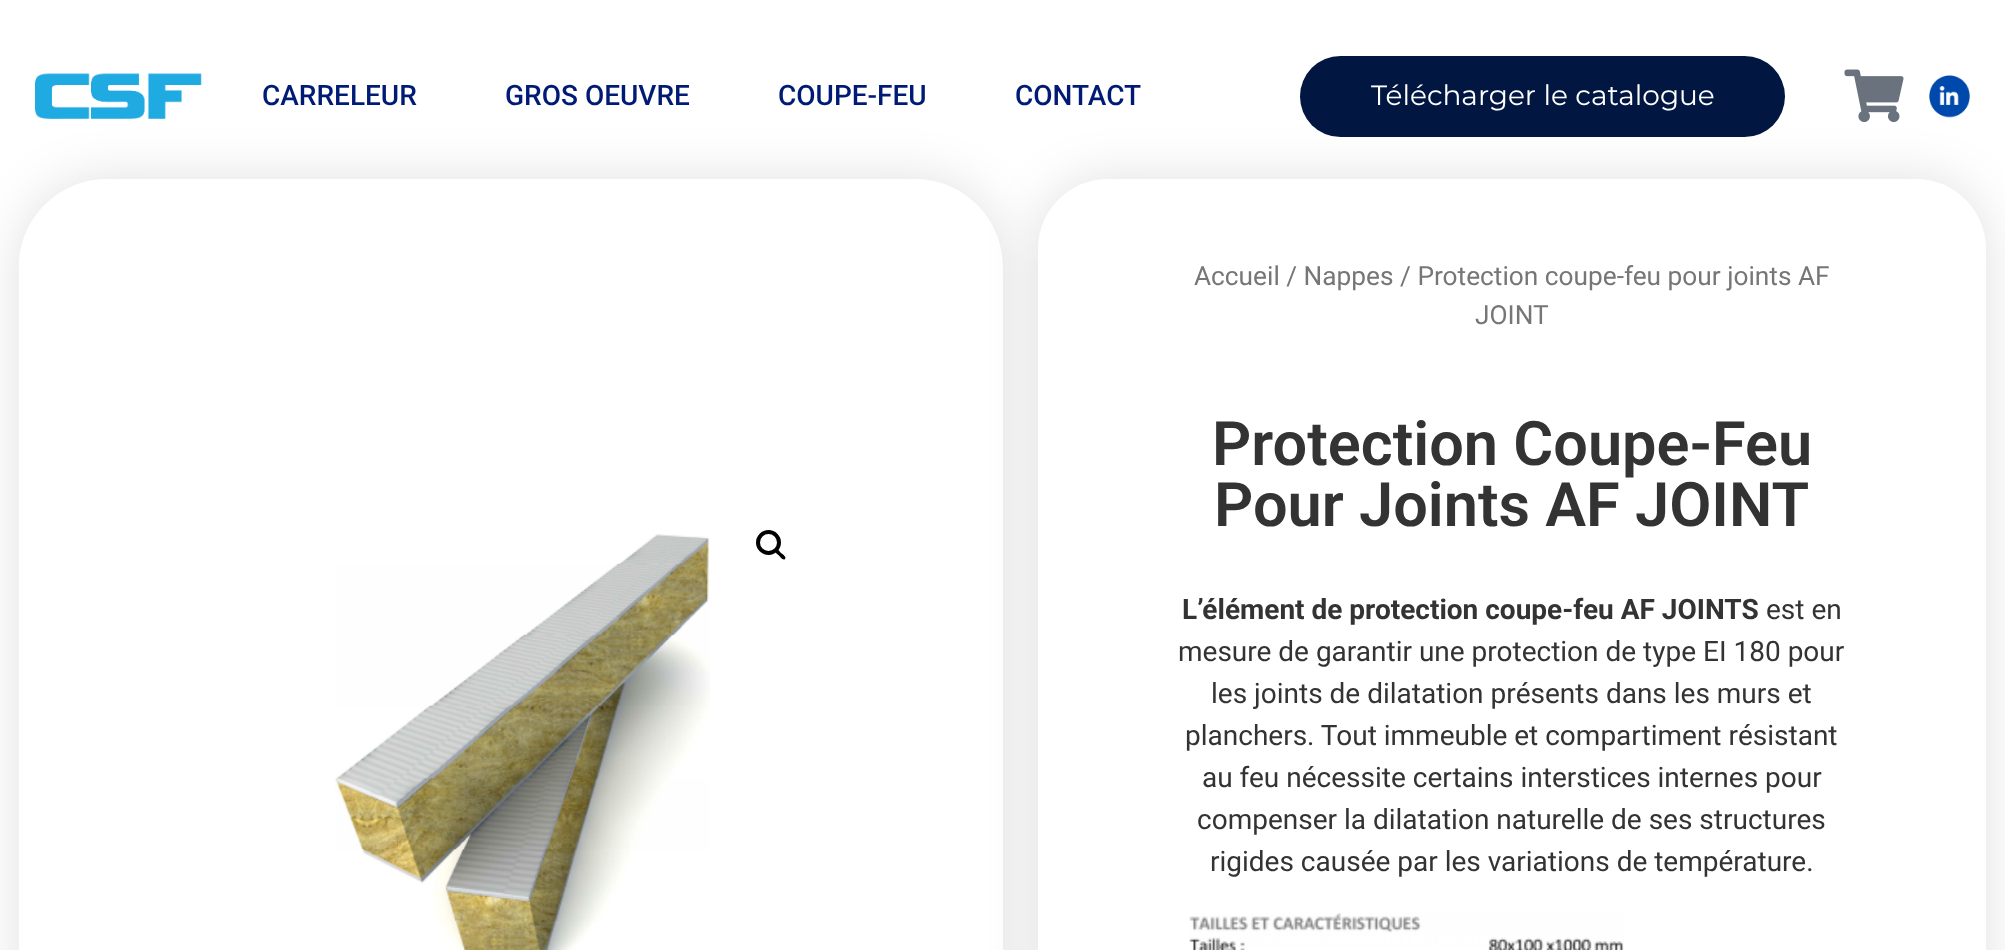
(async () => {
const canvas = document.querySelector("canvas")
canvas.width = 2005
canvas.height = 950
const c = canvas.getContext("2d")
c.miterLimit = 4
c.fontKerning = "normal"
function T(s,x,y){c.fillText(s,x,y)}
function R(x,y,w,h){c.fillRect(x,y,w,h)}
function Q(x,y,w,h,r){c.beginPath();c.roundRect(x,y,w,h,r);c.fill()}
async function I(src,x,y,w,h){const img=new Image();img.src=src;await img.decode();c.drawImage(img,x,y,w,h)}
let path
c.fillStyle="#fff"
R(0,0,2005,950)
c.save()
path = new Path2D("M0 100h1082v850h-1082zm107 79h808c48.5 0 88 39.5 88 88v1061c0 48.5-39.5 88-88 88h-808c-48.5 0-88-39.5-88-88v-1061c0-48.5 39.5-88 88-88z")
c.clip(path,"evenodd")
c.fillStyle="#0000001f"
c.filter="blur(26px)"
c.beginPath()
c.roundRect(19,179,984,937,88)
c.fill()
c.filter="none"
c.restore()
await I("1.png",35,73,167,46)
c.font="500 28px Roboto"
c.fillStyle="#001b75"
T("CARRELEUR",262,105)
T("GROS OEUVRE",505,105)
T("COUPE-FEU",778,105)
c.fillStyle="#0000001f"
c.filter="blur(26px)"
c.beginPath()
c.roundRect(1038,179,948,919,70)
c.fill()
c.filter="none"
c.fillStyle="#001b75"
T("CONTACT",1015,105)
c.fillStyle="#011640"
Q(1300,56,485,81,40.5)
c.font="28px Montserrat"
c.fillStyle="#fff"
T("Télécharger le catalogue",1371,105)
await I("2.png",1844,69,60,54)
await I("3.png",1929,75,41,43)
await I("4.png",335,534,375,416)
c.beginPath()
c.arc(768.5,542.5,10.5,0,7)
c.strokeStyle="#000"
c.lineWidth=4
c.stroke()
c.fillStyle="#000"
path = new Path2D("M775 549c2-2 5 3 6 4c1.5 1 6 4 4 6c-2 2-5-2.5-6-3.5c-1.5-1-6-4.5-4-6.5z")
c.fill(path)
c.fillStyle="#fff"
Q(1038,179,948,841,70)
c.font="26.25px Roboto"
c.fillStyle="#767676"
T("Accueil / Nappes / Protection coupe-feu pour joints AF",1194,285)
T("JOINT",1475,324)
c.font="600 61.25px Roboto"
c.fillStyle="#333"
T("Protection Coupe-Feu",1212,465)
T("Pour Joints AF JOINT",1214,526)
c.font="bold 28px Roboto"
T("L’élément de protection coupe-feu AF JOINTS",1182,619)
c.font="28px Roboto"
T("est en",1766,619)
T("mesure de garantir une protection de type EI 180 pour",1178,661)
T("les joints de dilatation présents dans les murs et",1211,703)
T("planchers. Tout immeuble et compartiment résistant",1185,745)
T("au feu nécessite certains interstices internes pour",1202,787)
T("compenser la dilatation naturelle de ses structures",1197,829)
T("rigides causée par les variations de température.",1210,871)
await I("5.png",1189,913,435,37)
})()
